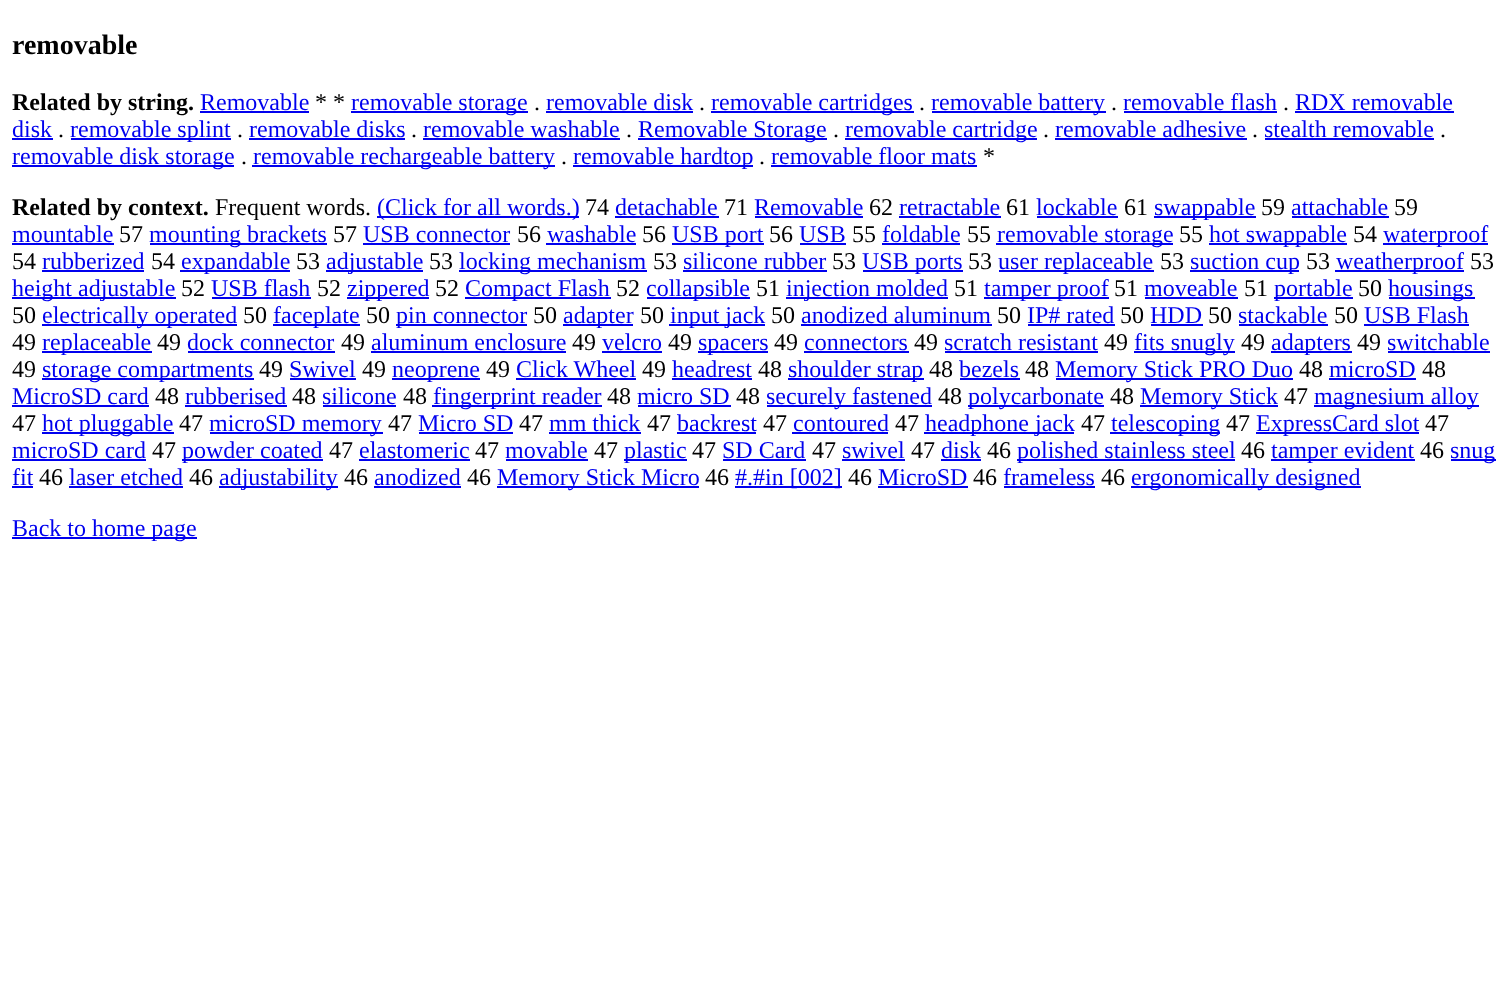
(async () => {
const canvas = document.querySelector("canvas")
canvas.width = 1508
canvas.height = 992
const c = canvas.getContext("2d")
c.miterLimit = 4
c.fontKerning = "normal"
function T(s,x,y){c.fillText(s,x,y)}
function R(x,y,w,h){c.fillRect(x,y,w,h)}
c.fillStyle="#fff"
R(0,0,1508,992)
c.font="bold 28px Liberation Serif"
c.fillStyle="#000"
T("removable",12,54)
c.font="bold 24px Liberation Serif"
T("Related by string.",12,110)
c.font="24px Liberation Serif"
c.fillStyle="#00e"
T("Removable",200,110)
R(200,111,109,2)
c.fillStyle="#000"
T("* *",315,110)
c.fillStyle="#00e"
R(351,111,177,2)
T("removable storage",351,110)
T("removable disk",546,110)
R(546,111,147,2)
R(711,111,203,2)
T("removable cartridges",711,110)
R(932,111,174,2)
T("removable battery",931,110)
T("removable flash",1123,110)
R(1124,111,153,2)
T("RDX removable",1295,110)
R(1295,111,159,2)
c.fillStyle="#000"
T(".",534,110)
T(".",699,110)
T(".",919,110)
T(".",1111,110)
T(".",1283,110)
c.fillStyle="#00e"
T("disk",12,137)
R(12,138,41,2)
c.fillStyle="#000"
T(".",58,137)
c.fillStyle="#00e"
R(71,138,160,2)
T("removable splint",70,137)
c.fillStyle="#000"
T(".",237,137)
c.fillStyle="#00e"
T("removable disks",249,137)
R(249,138,156,2)
c.fillStyle="#000"
T(".",411,137)
c.fillStyle="#00e"
T("removable washable",423,137)
R(423,138,197,2)
c.fillStyle="#000"
T(".",626,137)
c.fillStyle="#00e"
R(638,138,189,2)
T("Removable Storage",638,137)
c.fillStyle="#000"
T(".",833,137)
c.fillStyle="#00e"
R(845,138,192,2)
T("removable cartridge",845,137)
c.fillStyle="#000"
T(".",1043,137)
c.fillStyle="#00e"
T("removable adhesive",1055,137)
R(1055,138,192,2)
c.fillStyle="#000"
T(".",1252,137)
c.fillStyle="#00e"
T("stealth removable",1264,137)
R(1265,138,169,2)
c.fillStyle="#000"
T(".",1440,137)
c.fillStyle="#00e"
R(12,165,222,2)
T("removable disk storage",12,164)
R(252,165,303,2)
T("removable rechargeable battery",253,164)
R(573,165,180,2)
T("removable hardtop",573,164)
T("removable floor mats",771,164)
R(771,165,206,2)
c.fillStyle="#000"
T("*",983,164)
T(".",241,164)
T(".",561,164)
T(".",759,164)
c.font="bold 24px Liberation Serif"
T("Related by context.",12,215)
c.font="24px Liberation Serif"
T("Frequent words.",215,215)
c.fillStyle="#00e"
R(377,216,202,2)
T("(Click for all words.)",377,215)
c.fillStyle="#000"
T("74",585,215)
c.fillStyle="#00e"
T("detachable",615,215)
R(615,216,104,2)
c.fillStyle="#000"
T("71",724,215)
c.fillStyle="#00e"
T("Removable",754,215)
R(755,216,108,2)
c.fillStyle="#000"
T("62",869,215)
c.fillStyle="#00e"
T("retractable",899,215)
R(899,216,102,2)
c.fillStyle="#000"
T("61",1006,215)
c.fillStyle="#00e"
T("lockable",1036,215)
R(1037,216,81,2)
c.fillStyle="#000"
T("61",1124,215)
c.fillStyle="#00e"
R(1154,216,102,2)
T("swappable",1154,215)
c.fillStyle="#000"
T("59",1261,215)
c.fillStyle="#00e"
T("attachable",1291,215)
R(1292,216,97,2)
c.fillStyle="#000"
T("59",1394,215)
c.fillStyle="#00e"
T("mountable",12,242)
R(12,243,102,2)
c.fillStyle="#000"
T("57",119,242)
c.fillStyle="#00e"
R(150,243,177,2)
T("mounting brackets",149,242)
c.fillStyle="#000"
T("57",333,242)
c.fillStyle="#00e"
T("USB connector",363,242)
R(363,243,147,2)
c.fillStyle="#000"
T("56",517,242)
c.fillStyle="#00e"
T("washable",547,242)
R(546,243,90,2)
c.fillStyle="#000"
T("56",642,242)
c.fillStyle="#00e"
R(672,243,92,2)
T("USB port",672,242)
c.fillStyle="#000"
T("56",769,242)
c.fillStyle="#00e"
T("USB",799,242)
R(800,243,46,2)
c.fillStyle="#000"
T("55",852,242)
c.fillStyle="#00e"
T("foldable",882,242)
R(882,243,78,2)
c.fillStyle="#000"
T("55",967,242)
c.fillStyle="#00e"
R(996,243,177,2)
T("removable storage",997,242)
c.fillStyle="#000"
T("55",1179,242)
c.fillStyle="#00e"
R(1209,243,138,2)
T("hot swappable",1209,242)
c.fillStyle="#000"
T("54",1353,242)
c.fillStyle="#00e"
R(1383,243,105,2)
T("waterproof",1383,242)
c.fillStyle="#000"
T("54",12,269)
c.fillStyle="#00e"
T("rubberized",42,269)
R(42,270,102,2)
c.fillStyle="#000"
T("54",151,269)
c.fillStyle="#00e"
R(180,270,110,2)
T("expandable",181,269)
c.fillStyle="#000"
T("53",296,269)
c.fillStyle="#00e"
R(326,270,97,2)
T("adjustable",326,269)
c.fillStyle="#000"
T("53",429,269)
c.fillStyle="#00e"
R(459,270,188,2)
T("locking mechanism",459,269)
c.fillStyle="#000"
T("53",653,269)
c.fillStyle="#00e"
T("silicone rubber",683,269)
R(683,270,144,2)
c.fillStyle="#000"
T("53",832,269)
c.fillStyle="#00e"
R(863,270,100,2)
T("USB ports",862,269)
c.fillStyle="#000"
T("53",968,269)
c.fillStyle="#00e"
R(999,270,155,2)
T("user replaceable",998,269)
c.fillStyle="#000"
T("53",1160,269)
c.fillStyle="#00e"
R(1190,270,109,2)
T("suction cup",1190,269)
c.fillStyle="#000"
T("53",1306,269)
c.fillStyle="#00e"
R(1335,270,129,2)
T("weatherproof",1336,269)
c.fillStyle="#000"
T("53",1470,269)
c.fillStyle="#00e"
R(12,297,164,2)
T("height adjustable",12,296)
c.fillStyle="#000"
T("52",181,296)
c.fillStyle="#00e"
T("USB flash",211,296)
R(212,297,99,2)
c.fillStyle="#000"
T("52",317,296)
c.fillStyle="#00e"
R(347,297,82,2)
T("zippered",347,296)
c.fillStyle="#000"
T("52",435,296)
c.fillStyle="#00e"
R(465,297,146,2)
T("Compact Flash",465,296)
c.fillStyle="#000"
T("52",616,296)
c.fillStyle="#00e"
R(647,297,103,2)
T("collapsible",646,296)
c.fillStyle="#000"
T("51",756,296)
c.fillStyle="#00e"
R(786,297,162,2)
T("injection molded",786,296)
c.fillStyle="#000"
T("51",954,296)
c.fillStyle="#00e"
R(984,297,125,2)
T("tamper proof",984,296)
c.fillStyle="#000"
T("51",1114,296)
c.fillStyle="#00e"
T("moveable",1144,296)
R(1145,297,93,2)
c.fillStyle="#000"
T("51",1244,296)
c.fillStyle="#00e"
R(1274,297,79,2)
T("portable",1274,296)
c.fillStyle="#000"
T("50",1358,296)
c.fillStyle="#00e"
R(1389,297,86,2)
T("housings",1388,296)
c.fillStyle="#000"
T("50",12,323)
c.fillStyle="#00e"
R(42,324,195,2)
T("electrically operated",42,323)
c.fillStyle="#000"
T("50",243,323)
c.fillStyle="#00e"
R(273,324,87,2)
T("faceplate",273,323)
c.fillStyle="#000"
T("50",366,323)
c.fillStyle="#00e"
R(396,324,131,2)
T("pin connector",396,323)
c.fillStyle="#000"
T("50",533,323)
c.fillStyle="#00e"
R(563,324,70,2)
T("adapter",563,323)
c.fillStyle="#000"
T("50",640,323)
c.fillStyle="#00e"
R(669,324,96,2)
T("input jack",670,323)
c.fillStyle="#000"
T("50",771,323)
c.fillStyle="#00e"
T("anodized aluminum",801,323)
R(801,324,191,2)
c.fillStyle="#000"
T("50",997,323)
c.fillStyle="#00e"
T("IP# rated",1027,323)
R(1028,324,87,2)
c.fillStyle="#000"
T("50",1120,323)
c.fillStyle="#00e"
T("HDD",1150,323)
R(1151,324,52,2)
c.fillStyle="#000"
T("50",1208,323)
c.fillStyle="#00e"
T("stackable",1238,323)
R(1239,324,89,2)
c.fillStyle="#000"
T("50",1334,323)
c.fillStyle="#00e"
T("USB Flash",1364,323)
R(1364,324,105,2)
c.fillStyle="#000"
T("49",12,350)
c.fillStyle="#00e"
R(42,351,110,2)
T("replaceable",42,350)
c.fillStyle="#000"
T("49",157,350)
c.fillStyle="#00e"
T("dock connector",187,350)
R(188,351,147,2)
c.fillStyle="#000"
T("49",341,350)
c.fillStyle="#00e"
T("aluminum enclosure",371,350)
R(371,351,195,2)
c.fillStyle="#000"
T("49",572,350)
c.fillStyle="#00e"
T("velcro",602,350)
R(602,351,60,2)
c.fillStyle="#000"
T("49",668,350)
c.fillStyle="#00e"
R(698,351,70,2)
T("spacers",698,350)
c.fillStyle="#000"
T("49",774,350)
c.fillStyle="#00e"
T("connectors",804,350)
R(804,351,105,2)
c.fillStyle="#000"
T("49",914,350)
c.fillStyle="#00e"
T("scratch resistant",944,350)
R(945,351,153,2)
c.fillStyle="#000"
T("49",1104,350)
c.fillStyle="#00e"
R(1134,351,101,2)
T("fits snugly",1134,350)
c.fillStyle="#000"
T("49",1241,350)
c.fillStyle="#00e"
R(1271,351,81,2)
T("adapters",1271,350)
c.fillStyle="#000"
T("49",1357,350)
c.fillStyle="#00e"
T("switchable",1387,350)
R(1388,351,102,2)
c.fillStyle="#000"
T("49",12,377)
c.fillStyle="#00e"
R(42,378,212,2)
T("storage compartments",42,377)
c.fillStyle="#000"
T("49",259,377)
c.fillStyle="#00e"
T("Swivel",289,377)
R(290,378,66,2)
c.fillStyle="#000"
T("49",362,377)
c.fillStyle="#00e"
R(392,378,88,2)
T("neoprene",392,377)
c.fillStyle="#000"
T("49",486,377)
c.fillStyle="#00e"
T("Click Wheel",516,377)
R(516,378,120,2)
c.fillStyle="#000"
T("49",642,377)
c.fillStyle="#00e"
T("headrest",672,377)
R(672,378,80,2)
c.fillStyle="#000"
T("48",758,377)
c.fillStyle="#00e"
R(788,378,136,2)
T("shoulder strap",788,377)
c.fillStyle="#000"
T("48",929,377)
c.fillStyle="#00e"
T("bezels",959,377)
R(960,378,60,2)
c.fillStyle="#000"
T("48",1025,377)
c.fillStyle="#00e"
R(1056,378,237,2)
T("Memory Stick PRO Duo",1055,377)
c.fillStyle="#000"
T("48",1299,377)
c.fillStyle="#00e"
T("microSD",1329,377)
R(1329,378,87,2)
c.fillStyle="#000"
T("48",1422,377)
c.fillStyle="#00e"
T("MicroSD card",12,404)
R(12,405,137,2)
c.fillStyle="#000"
T("48",155,404)
c.fillStyle="#00e"
T("rubberised",185,404)
R(185,405,102,2)
c.fillStyle="#000"
T("48",292,404)
c.fillStyle="#00e"
T("silicone",322,404)
R(323,405,73,2)
c.fillStyle="#000"
T("48",403,404)
c.fillStyle="#00e"
R(432,405,170,2)
T("fingerprint reader",433,404)
c.fillStyle="#000"
T("48",607,404)
c.fillStyle="#00e"
T("micro SD",637,404)
R(638,405,93,2)
c.fillStyle="#000"
T("48",736,404)
c.fillStyle="#00e"
R(767,405,165,2)
T("securely fastened",766,404)
c.fillStyle="#000"
T("48",938,404)
c.fillStyle="#00e"
R(968,405,136,2)
T("polycarbonate",968,404)
c.fillStyle="#000"
T("48",1110,404)
c.fillStyle="#00e"
R(1140,405,138,2)
T("Memory Stick",1140,404)
c.fillStyle="#000"
T("47",1284,404)
c.fillStyle="#00e"
R(1314,405,165,2)
T("magnesium alloy",1314,404)
c.fillStyle="#000"
T("47",12,431)
c.fillStyle="#00e"
R(42,432,132,2)
T("hot pluggable",42,431)
c.fillStyle="#000"
T("47",179,431)
c.fillStyle="#00e"
R(210,432,173,2)
T("microSD memory",209,431)
c.fillStyle="#000"
T("47",388,431)
c.fillStyle="#00e"
T("Micro SD",418,431)
R(419,432,94,2)
c.fillStyle="#000"
T("47",519,431)
c.fillStyle="#00e"
T("mm thick",549,431)
R(549,432,92,2)
c.fillStyle="#000"
T("47",647,431)
c.fillStyle="#00e"
T("backrest",677,431)
R(677,432,79,2)
c.fillStyle="#000"
T("47",763,431)
c.fillStyle="#00e"
T("contoured",793,431)
R(792,432,96,2)
c.fillStyle="#000"
T("47",895,431)
c.fillStyle="#00e"
R(924,432,150,2)
T("headphone jack",925,431)
c.fillStyle="#000"
T("47",1081,431)
c.fillStyle="#00e"
R(1110,432,110,2)
T("telescoping",1111,431)
c.fillStyle="#000"
T("47",1226,431)
c.fillStyle="#00e"
R(1256,432,163,2)
T("ExpressCard slot",1256,431)
c.fillStyle="#000"
T("47",1425,431)
c.fillStyle="#00e"
T("microSD card",12,458)
R(12,459,134,2)
c.fillStyle="#000"
T("47",152,458)
c.fillStyle="#00e"
R(182,459,141,2)
T("powder coated",182,458)
c.fillStyle="#000"
T("47",329,458)
c.fillStyle="#00e"
T("elastomeric",359,458)
R(359,459,111,2)
c.fillStyle="#000"
T("47",475,458)
c.fillStyle="#00e"
T("movable",505,458)
R(506,459,82,2)
c.fillStyle="#000"
T("47",594,458)
c.fillStyle="#00e"
R(624,459,63,2)
T("plastic",624,458)
c.fillStyle="#000"
T("47",692,458)
c.fillStyle="#00e"
T("SD Card",722,458)
R(723,459,83,2)
c.fillStyle="#000"
T("47",812,458)
c.fillStyle="#00e"
T("swivel",842,458)
R(842,459,63,2)
c.fillStyle="#000"
T("47",911,458)
c.fillStyle="#00e"
T("disk",941,458)
R(941,459,40,2)
c.fillStyle="#000"
T("46",987,458)
c.fillStyle="#00e"
R(1017,459,218,2)
T("polished stainless steel",1017,458)
c.fillStyle="#000"
T("46",1241,458)
c.fillStyle="#00e"
R(1271,459,144,2)
T("tamper evident",1271,458)
c.fillStyle="#000"
T("46",1420,458)
c.fillStyle="#00e"
R(1451,459,45,2)
T("snug",1450,458)
T("fit",12,485)
R(12,486,21,2)
c.fillStyle="#000"
T("46",39,485)
c.fillStyle="#00e"
T("laser etched",69,485)
R(69,486,114,2)
c.fillStyle="#000"
T("46",189,485)
c.fillStyle="#00e"
R(219,486,119,2)
T("adjustability",219,485)
c.fillStyle="#000"
T("46",344,485)
c.fillStyle="#00e"
T("anodized",374,485)
R(374,486,87,2)
c.fillStyle="#000"
T("46",467,485)
c.fillStyle="#00e"
R(497,486,202,2)
T("Memory Stick Micro",497,485)
c.fillStyle="#000"
T("46",705,485)
c.fillStyle="#00e"
R(735,486,107,2)
T("#.#in [002]",735,485)
c.fillStyle="#000"
T("46",848,485)
c.fillStyle="#00e"
T("MicroSD",878,485)
R(878,486,90,2)
c.fillStyle="#000"
T("46",973,485)
c.fillStyle="#00e"
T("frameless",1003,485)
R(1004,486,91,2)
c.fillStyle="#000"
T("46",1101,485)
c.fillStyle="#00e"
R(1131,486,230,2)
T("ergonomically designed",1131,485)
R(12,537,185,2)
T("Back to home page",12,536)
})()
